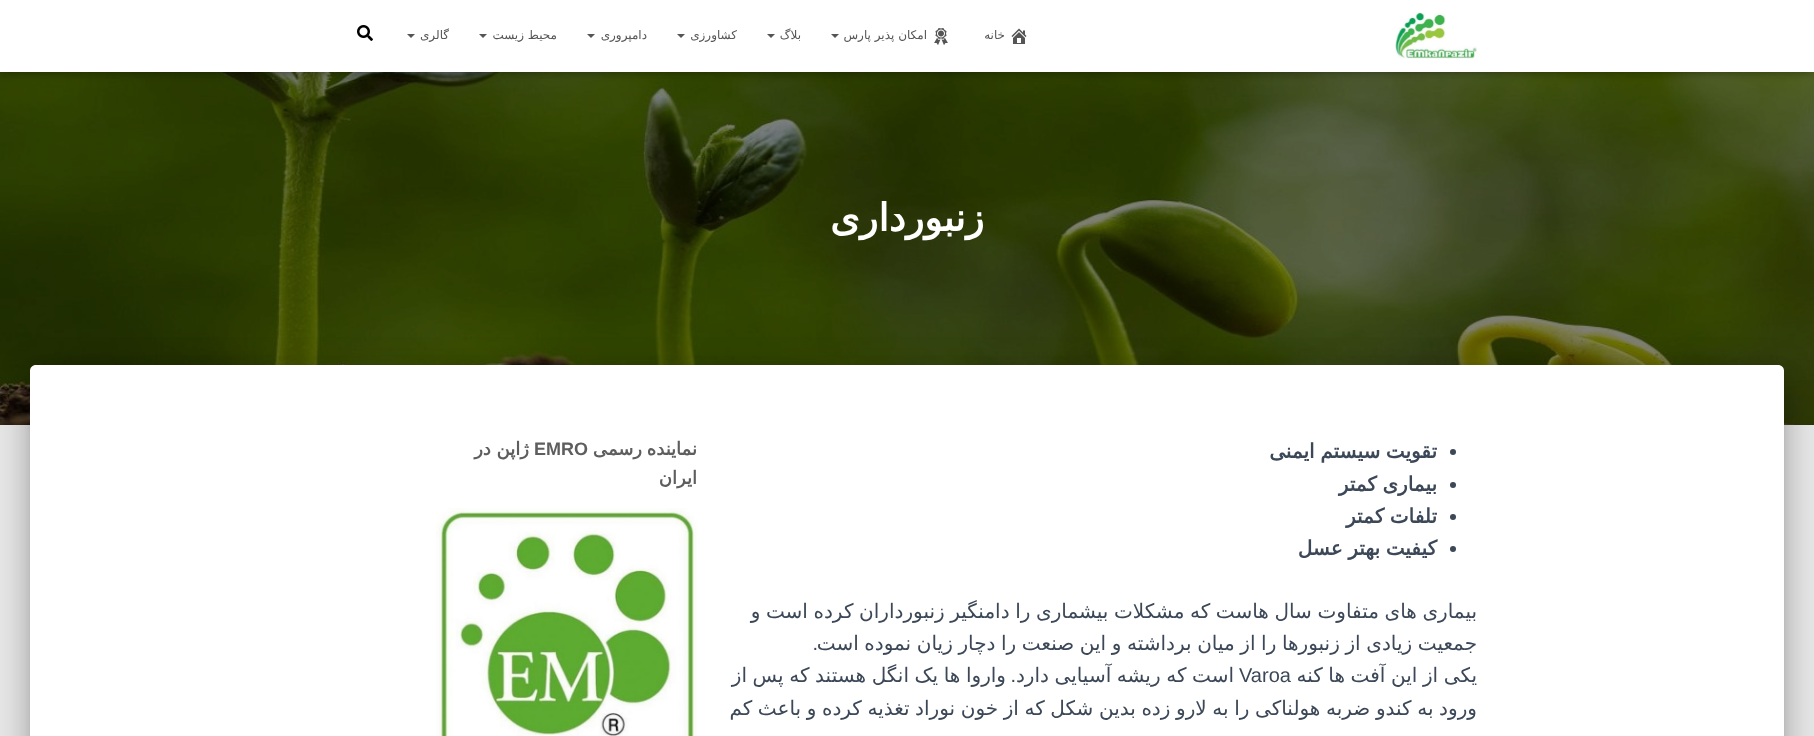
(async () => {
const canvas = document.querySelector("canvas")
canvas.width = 1814
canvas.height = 736
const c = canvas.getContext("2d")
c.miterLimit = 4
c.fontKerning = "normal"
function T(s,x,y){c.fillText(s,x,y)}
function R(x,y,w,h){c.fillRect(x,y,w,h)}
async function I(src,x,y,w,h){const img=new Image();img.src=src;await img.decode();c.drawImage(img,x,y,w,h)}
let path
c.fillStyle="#e5e5e5"
R(0,0,1814,736)
await I("5.png",0,72,1814,353)
c.fillStyle="#0000001a"
c.filter="blur(2.5px)"
c.beginPath()
c.rect(2,6,1810,68)
c.fill()
c.filter="none"
c.fillStyle="#0000001f"
c.filter="blur(5px)"
c.beginPath()
c.rect(0,1,1814,72)
c.fill()
c.filter="none"
c.fillStyle="#0000006b"
c.filter="blur(5px)"
c.beginPath()
c.rect(6,7,1802,60)
c.fill()
c.filter="none"
c.fillStyle="#fff"
R(0,0,1814,72)
await I("1.png",1395,12,82,47)
await I("2.png",1011,28,16,16)
c.direction="rtl"
c.font="12px DejaVu Sans"
c.fillStyle="#555"
T("خانه",1005,39)
await I("3.png",934,28,14,17)
T("امکان پذیر پارس",927,39)
path = new Path2D("M831 34h8l-4 4z")
c.fill(path)
T("بلاگ",801,39)
path = new Path2D("M767 34h8l-4 4z")
c.fill(path)
T("کشاورزی",737,39)
path = new Path2D("M677 34h8l-4 4z")
c.fill(path)
T("دامپروری",647,39)
path = new Path2D("M587 34h8l-4 4z")
c.fill(path)
T("محیط زیست",557,39)
path = new Path2D("M479 34h8l-4 4z")
c.fill(path)
T("گالری",449,39)
path = new Path2D("M407 34h8l-4 4z")
c.fill(path)
await I("4.png",357,25,16,16)
c.font="bold 38px DejaVu Sans"
c.fillStyle="#fff"
T("زنبورداری",984,231)
c.fillStyle="#00000033"
c.filter="blur(5px)"
c.beginPath()
c.roundRect(35,378,1744,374,1)
c.fill()
c.filter="none"
c.fillStyle="#0000001f"
c.filter="blur(15px)"
c.beginPath()
c.roundRect(25,366,1764,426,11)
c.fill()
c.filter="none"
c.fillStyle="#00000024"
c.filter="blur(12px)"
c.beginPath()
c.roundRect(28,379,1758,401,8)
c.fill()
c.filter="none"
c.fillStyle="#fff"
path = new Path2D("M36 365h1742c3.5 0 6 2.5 6 6v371h-1754v-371c0-3.5 2.5-6 6-6z")
c.fill(path)
c.fillStyle="#3c4858"
c.beginPath()
c.arc(1453,452,3,0,7)
c.fill()
c.wordSpacing="-0.75px"
c.font="bold 20px DejaVu Sans"
T("تقویت سیستم ایمنی",1437,458)
c.beginPath()
c.arc(1453,485,3,0,7)
c.fill()
T("بیماری کمتر",1437,491)
c.beginPath()
c.arc(1453,517,3,0,7)
c.fill()
T("تلفات کمتر",1437,523)
c.beginPath()
c.arc(1453,549,3,0,7)
c.fill()
T("کیفیت بهتر عسل",1437,555)
c.font="20px DejaVu Sans"
T("بیماری های متفاوت سال هاست که مشکلات بیشماری را دامنگیر زنبورداران کرده است و",1477,618)
T("جمعیت زیادی از زنبورها را از میان برداشته و این صنعت را دچار زیان نموده است",1477,650)
c.wordSpacing="0px"
c.font="20px Liberation Sans"
T(".",818,650)
c.wordSpacing="-0.75px"
c.font="20px DejaVu Sans"
T("یکی از این آفت ها کنه",1477,682)
c.wordSpacing="0px"
c.direction="ltr"
c.font="20px Liberation Sans"
T("Varoa",1239,682)
c.wordSpacing="-0.75px"
c.direction="rtl"
c.font="20px DejaVu Sans"
T("است که ریشه آسیایی دارد",1234,682)
c.wordSpacing="0px"
c.font="20px Liberation Sans"
T(".",1016,682)
c.wordSpacing="-0.75px"
c.font="20px DejaVu Sans"
T("واروا ها یک انگل هستند که پس از",1006,682)
T("ورود به کندو ضربه هولناکی را به لارو زده بدین شکل که از خون نوراد تغذیه کرده و باعث کم",1477,715)
c.wordSpacing="-1px"
c.font="bold 18px DejaVu Sans"
c.fillStyle="#5e5e5e"
T("نماینده رسمی",697,455)
c.wordSpacing="0px"
c.direction="ltr"
c.font="bold 18px Liberation Sans"
T("EMRO",534,455)
c.direction="rtl"
c.font="bold 18px DejaVu Sans"
T("ژاپن در",529,455)
T("ایران",697,484)
await I("6.png",436,508,261,228)
})()
